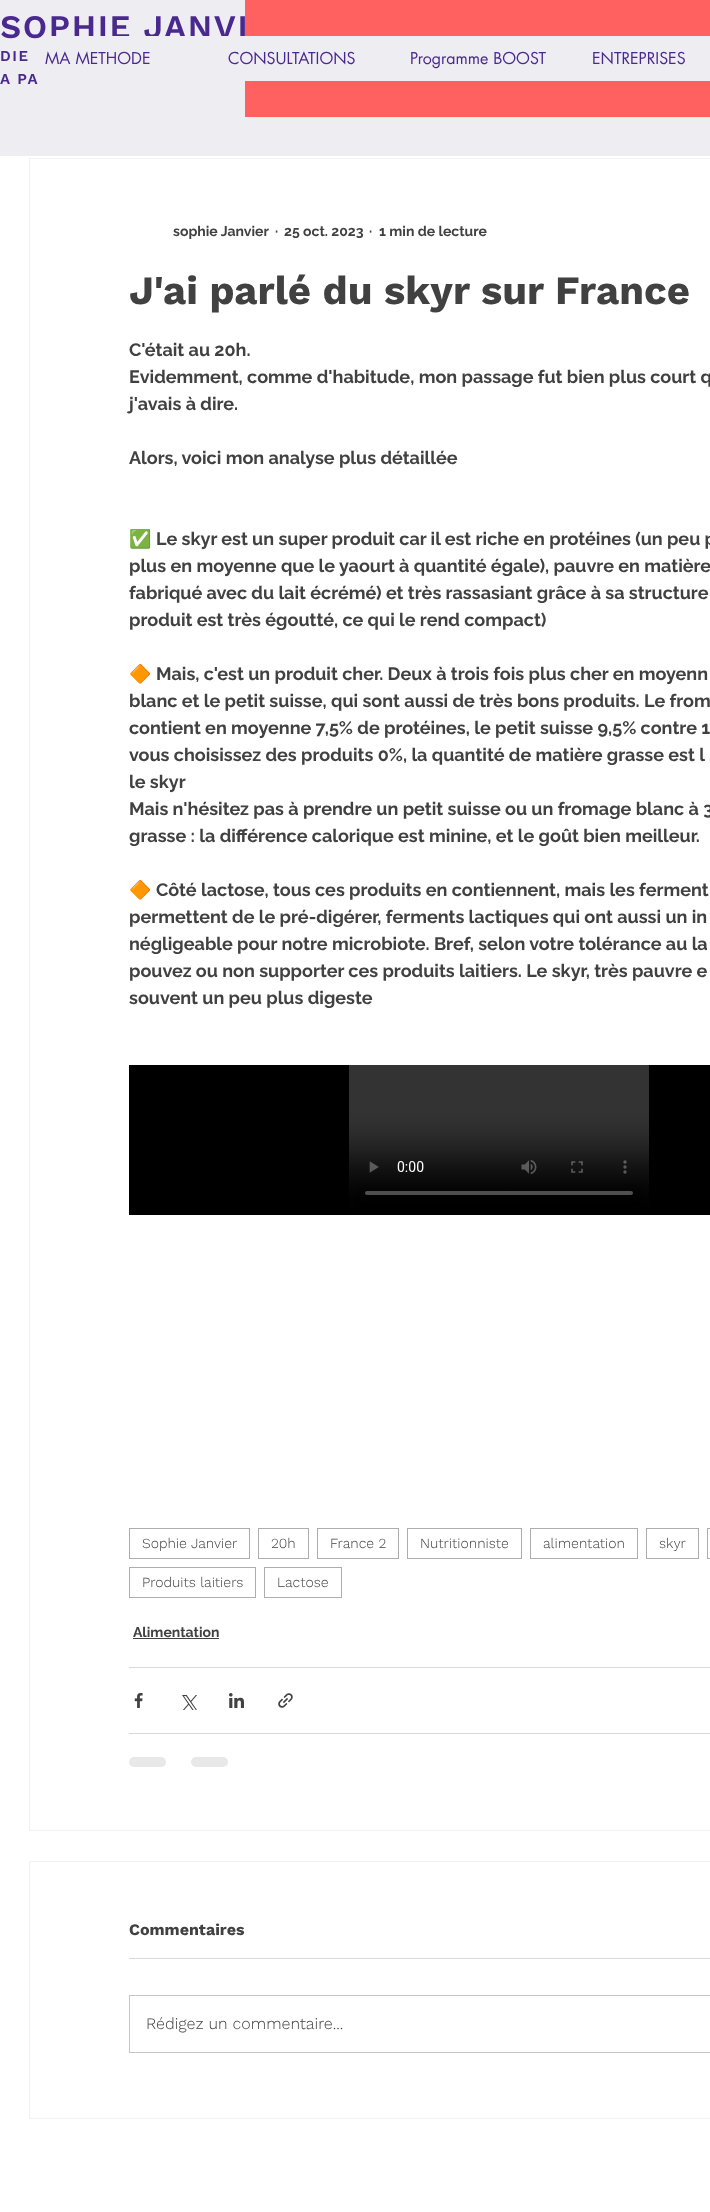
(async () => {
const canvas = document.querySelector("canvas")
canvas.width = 710
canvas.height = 2212
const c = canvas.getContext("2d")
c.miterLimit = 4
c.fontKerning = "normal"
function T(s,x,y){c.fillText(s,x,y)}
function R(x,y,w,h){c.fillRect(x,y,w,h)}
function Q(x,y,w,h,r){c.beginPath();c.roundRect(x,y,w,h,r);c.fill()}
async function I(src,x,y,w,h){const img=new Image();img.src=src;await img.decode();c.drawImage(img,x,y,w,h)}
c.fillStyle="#fff"
R(0,0,710,2212)
c.fillStyle="#eeedf2"
R(0,0,245,117)
c.letterSpacing="1.6px"
c.font="600 33px Work Sans"
c.fillStyle="#4a298f"
T("SOPHIE JANVI",0,38)
c.letterSpacing="1.5px"
c.font="600 15px Work Sans"
T("DIE",0,61)
T("A PA",0,84)
c.fillStyle="#ff6161"
R(245,0,465,117)
c.fillStyle="#eeedf2"
Q(30,36,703,45,22.5)
c.letterSpacing="0px"
c.font="16px futura"
c.fillStyle="#4a298f"
T("MA METHODE",45,64)
T("CONSULTATIONS",228,64)
T("Programme BOOST",410,64)
T("ENTREPRISES",592,64)
c.fillStyle="#eeedf2"
R(0,117,710,39)
c.strokeStyle="#f2f2f2"
c.strokeRect(29.5,158.5,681,1672)
c.font="bold 14px Raleway"
c.fillStyle="#414141"
T("sophie Janvier",173,236)
T("·",275,236)
T("25 oct. 2023",284,236)
T("·",369,236)
T("1 min de lecture",379,236)
c.font="bold 40px Work Sans"
T("J'ai parlé du skyr sur France",129,304)
c.font="bold 18px Raleway"
T("C'était au 20h.",129,356)
T("Evidemment, comme d'habitude, mon passage fut bien plus court q",129,383)
T("j'avais à dire.",129,410)
T("Alors, voici mon analyse plus détaillée",129,464)
c.font="bold 18px Noto Color Emoji"
T("✅",129,545)
c.font="bold 18px Raleway"
T("Le skyr est un super produit car il est riche en protéines (un peu p",156,545)
T("plus en moyenne que le yaourt à quantité égale), pauvre en matière",129,572)
T("fabriqué avec du lait écrémé) et très rassasiant grâce à sa structure",129,599)
T("produit est très égoutté, ce qui le rend compact)",129,626)
c.font="bold 18px Noto Color Emoji"
T("🔶",129,680)
c.font="bold 18px Raleway"
T("Mais, c'est un produit cher. Deux à trois fois plus cher en moyenn",156,680)
T("blanc et le petit suisse, qui sont aussi de très bons produits. Le from",129,707)
T("contient en moyenne 7,5% de protéines, le petit suisse 9,5% contre 1",129,734)
T("vous choisissez des produits 0%, la quantité de matière grasse est l",129,761)
T("le skyr",129,788)
T("Mais n'hésitez pas à prendre un petit suisse ou un fromage blanc à 3",129,815)
T("grasse : la différence calorique est minine, et le goût bien meilleur.",129,842)
c.font="bold 18px Noto Color Emoji"
T("🔶",129,896)
c.font="bold 18px Raleway"
T("Côté lactose, tous ces produits en contiennent, mais les ferment",156,896)
T("permettent de le pré-digérer, ferments lactiques qui ont aussi un in",129,923)
T("négligeable pour notre microbiote. Bref, selon votre tolérance au la",129,950)
T("pouvez ou non supporter ces produits laitiers. Le skyr, très pauvre e",129,977)
T("souvent un peu plus digeste",129,1004)
await I("1.png",129,1065,581,150)
c.strokeStyle="#adadad"
c.strokeRect(129.5,1528.5,120,30)
c.font="300 14px Work Sans"
T("Sophie Janvier",142,1548)
c.strokeRect(258.5,1528.5,50,30)
T("20h",271,1548)
c.strokeRect(317.5,1528.5,81,30)
T("France 2",330,1548)
c.strokeRect(407.5,1528.5,114,30)
T("Nutritionniste",420,1548)
c.strokeRect(530.5,1528.5,107,30)
T("alimentation",543,1548)
c.strokeRect(646.5,1528.5,52,30)
T("skyr",659,1548)
c.strokeRect(707.5,1528.5,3,30)
c.strokeRect(129.5,1567.5,126,30)
T("Produits laitiers",142,1587)
c.strokeRect(264.5,1567.5,77,30)
T("Lactose",277,1587)
c.font="bold 14px Raleway"
T("Alimentation",133,1637)
R(133,1638,86,1)
c.fillStyle="#d9d9d9"
R(129,1667,581,1)
await I("2.png",134,1693,9,15)
await I("3.png",182,1695,15,15)
await I("4.png",229,1693,15,15)
await I("5.png",278,1693,15,15)
R(129,1733,581,1)
c.fillStyle="#e8e8e8"
Q(129,1757,37,10,5)
Q(191,1757,37,10,5)
c.strokeStyle="#f2f2f2"
c.strokeRect(29.5,1861.5,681,257)
c.font="bold 16px Work Sans"
c.fillStyle="#414141"
T("Commentaires",129,1935)
c.fillStyle="#d9d9d9"
R(129,1958,581,1)
c.strokeStyle="#c6c6c6"
c.strokeRect(129.5,1995.5,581,57)
c.font="300 16px Work Sans"
c.fillStyle="#414141"
T("Rédigez un commentaire...",146,2029)
})()
